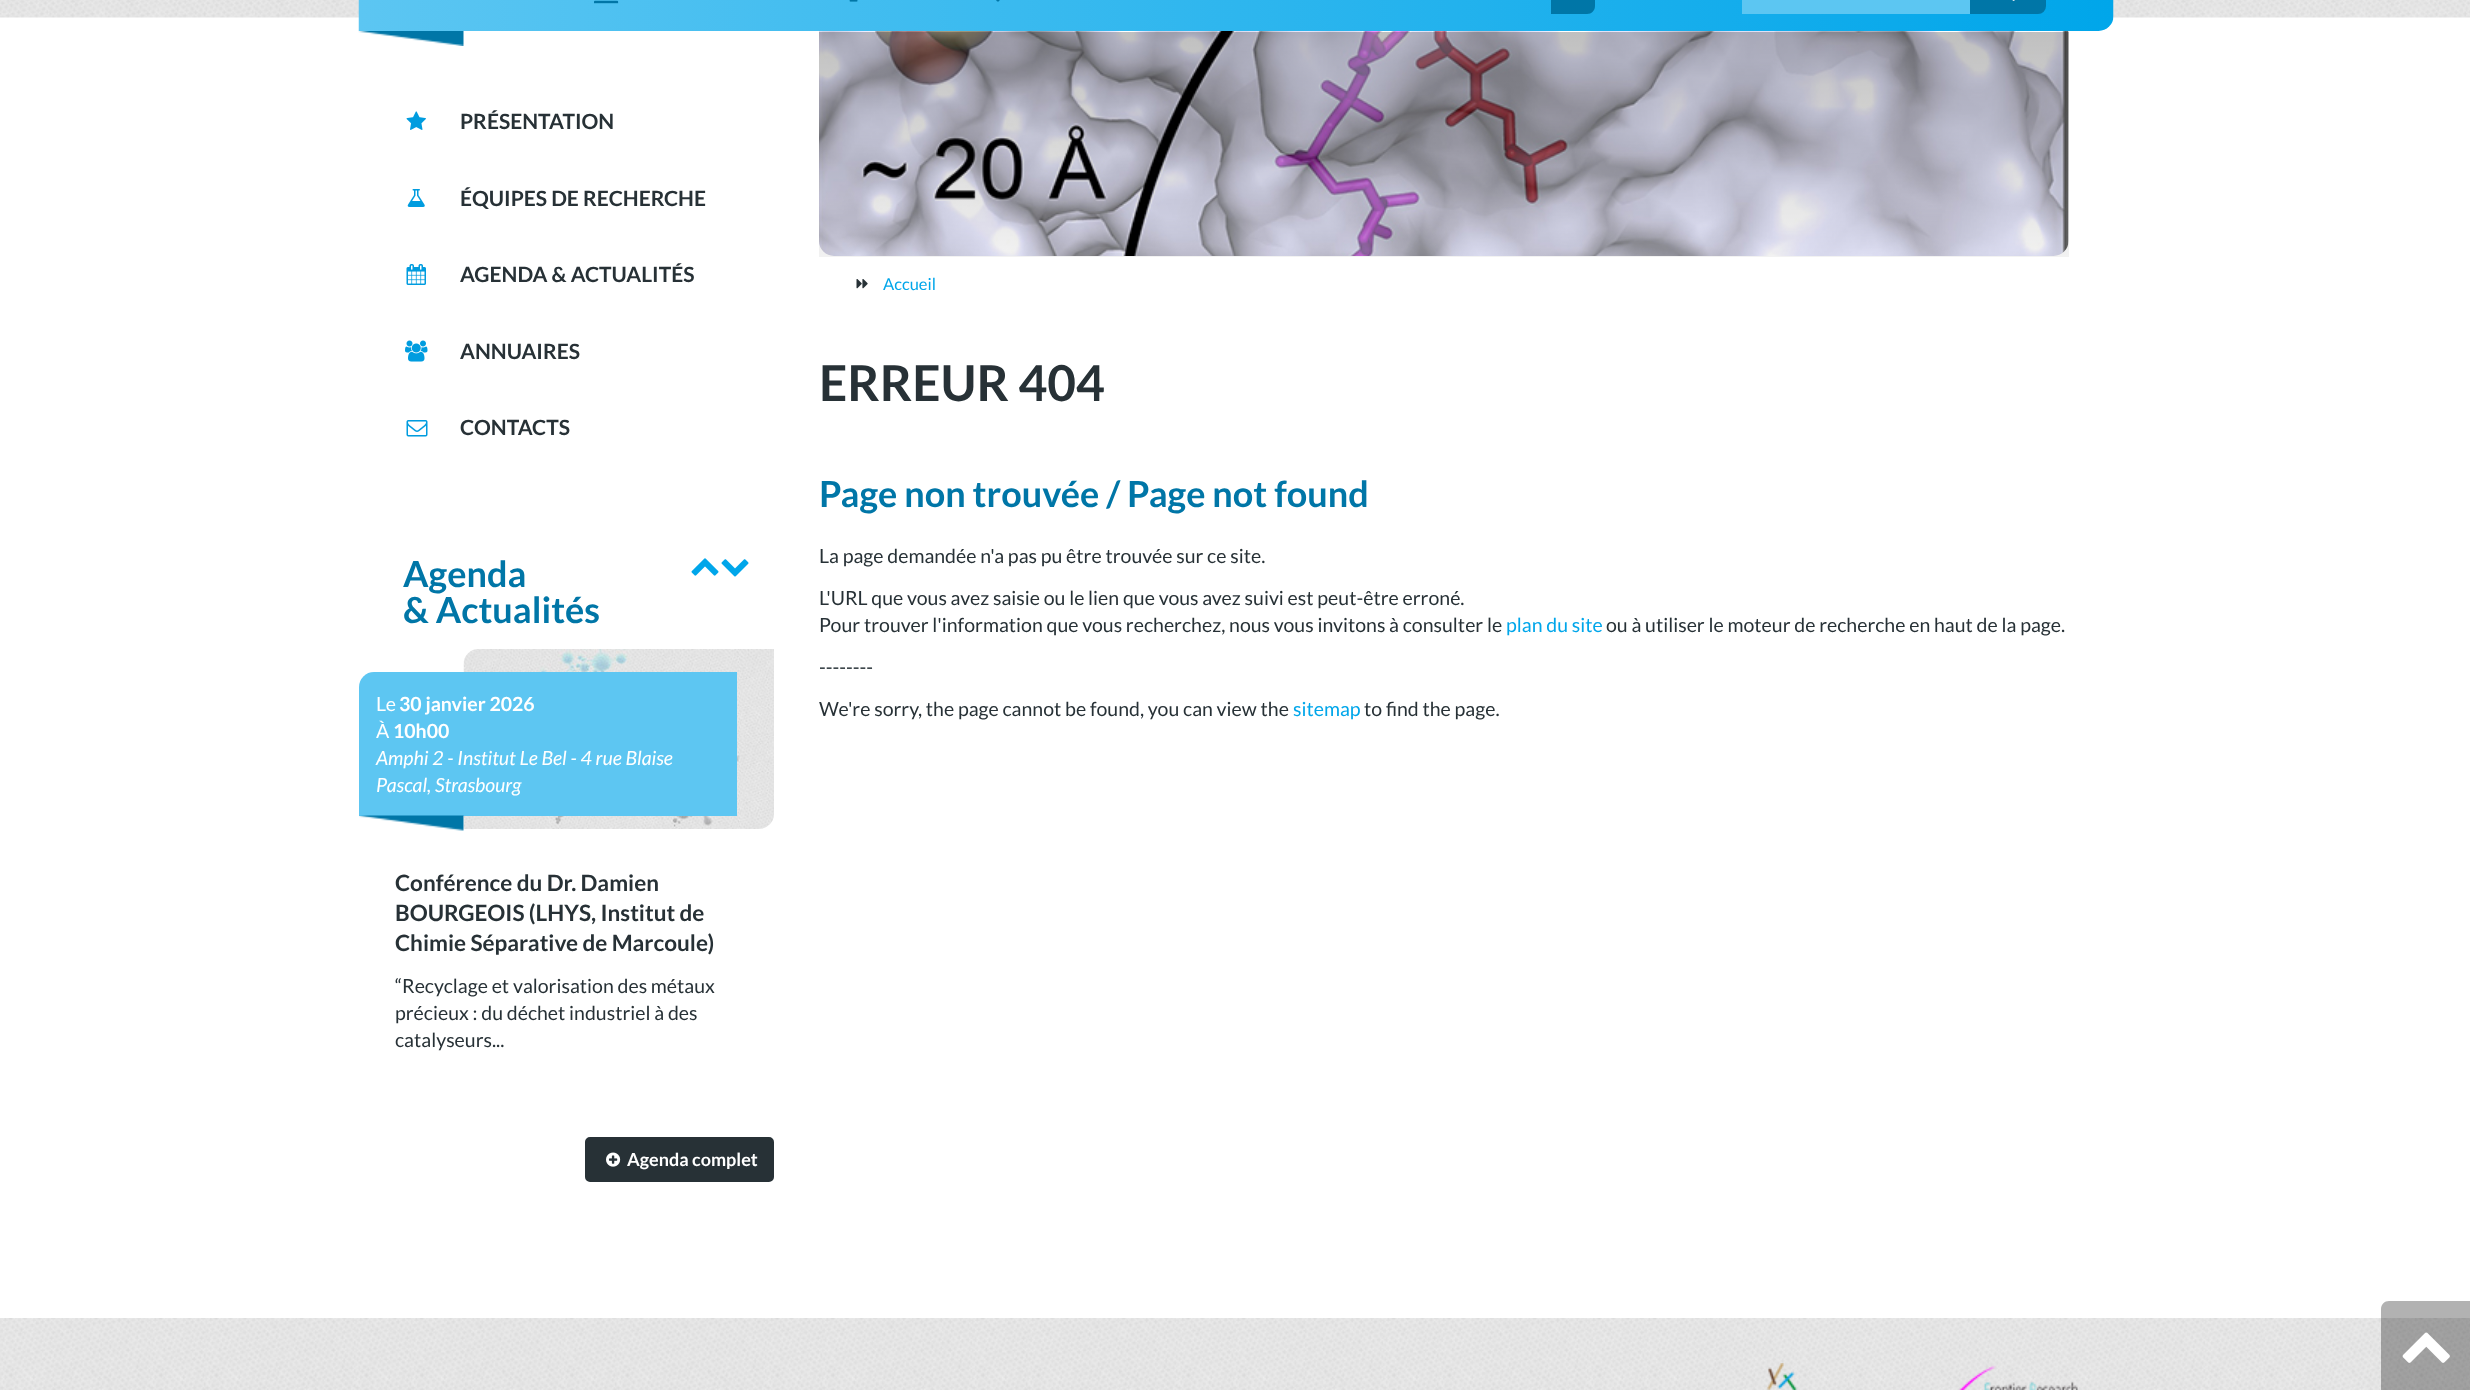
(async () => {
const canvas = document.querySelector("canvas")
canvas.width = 2470
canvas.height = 1390
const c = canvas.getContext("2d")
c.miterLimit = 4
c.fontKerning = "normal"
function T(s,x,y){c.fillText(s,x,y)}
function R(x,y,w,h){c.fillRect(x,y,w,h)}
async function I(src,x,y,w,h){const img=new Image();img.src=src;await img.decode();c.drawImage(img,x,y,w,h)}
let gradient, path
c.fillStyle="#fff"
R(0,0,2470,1390)
await I("1.png",0,0,2470,18)
await I("2.png",358,0,1756,31)
await I("3.png",594,0,25,4)
await I("4.png",849,0,9,2)
await I("5.png",996,0,4,2)
c.fillStyle="#0076a7"
path = new Path2D("M1559-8h36v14c0 4.5-3.5 8-8 8h-36v-14c0-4.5 3.5-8 8-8z")
c.fill(path)
c.fillStyle="#5cc6f2"
R(1742,0,228,14)
c.fillStyle="#0076a7"
path = new Path2D("M1971-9h74v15c0 4-3 7-7 7h-67z")
c.fill(path)
c.strokeStyle="#0076a7"
c.lineWidth=2
c.stroke(path)
await I("6.png",2012,0,3,1)
await I("7.png",358,31,106,15)
await I("8.png",406,111,20,19)
c.font="bold 21px Lato"
c.fillStyle="#273136"
T("PRÉSENTATION",460,129)
await I("9.png",407,189,18,18)
T("ÉQUIPES DE RECHERCHE",460,206)
await I("10.png",406,264,20,21)
T("AGENDA & ACTUALITÉS",460,282)
await I("11.png",405,340,23,22)
T("ANNUAIRES",460,359)
await I("12.png",406,420,22,17)
T("CONTACTS",460,435)
c.font="bold 36px Lato"
c.fillStyle="#0076a7"
T("Agenda",403,587)
T("& Actualités",403,623)
await I("13.png",691,558,28,18)
await I("14.png",721,559,28,18)
await I("15.png",463,649,311,180)
c.fillStyle="#5dc6f2"
c.beginPath()
c.roundRect(359,672,378,144,[15,0,0,0])
c.fill()
c.font="19.5px Lato"
c.fillStyle="#fff"
T("Le",376,711)
c.font="bold 19.5px Lato"
T("30 janvier 2026",399,711)
c.font="19.5px Lato"
T("À",376,738)
c.font="bold 19.5px Lato"
T("10h00",393,738)
c.font="italic 19.5px Lato"
T("Amphi 2 - Institut Le Bel - 4 rue Blaise",376,765)
T("Pascal, Strasbourg",376,792)
await I("16.png",359,815,105,16)
c.font="bold 22.5px Lato"
c.fillStyle="#273136"
T("Conférence du Dr. Damien",395,891)
T("BOURGEOIS (LHYS, Institut de",395,921)
T("Chimie Séparative de Marcoule)",395,951)
c.font="19.5px Lato"
T("“Recyclage et valorisation des métaux",395,993)
T("précieux : du déchet industriel à des",395,1020)
T("catalyseurs...",395,1047)
c.beginPath()
c.roundRect(586,1138,187,43,4)
c.fill()
c.strokeStyle="#273136"
c.stroke()
await I("17.png",606,1152,15,15)
c.font="bold 18px Lato"
c.fillStyle="#fff"
T("Agenda complet",627,1166)
await I("18.png",819,31,1250,225)
gradient = c.createLinearGradient(1444,31,1444,257)
gradient.addColorStop(0,"#00000040")
gradient.addColorStop(1,"#0000000d")
c.fillStyle = gradient
R(819,32,1250,225)
await I("19.png",856,279,12,10)
c.font="16.5px Lato"
c.fillStyle="#00a6ea"
T("Accueil",883,290)
c.font="bold 49.5px Lato"
c.fillStyle="#273136"
T("ERREUR 404",819,401)
c.font="bold 36px Lato"
c.fillStyle="#0076a7"
T("Page non trouvée / Page not found",819,507)
c.font="19.5px Lato"
c.fillStyle="#273136"
T("La page demandée n'a pas pu être trouvée sur ce site.",819,563)
T("L'URL que vous avez saisie ou le lien que vous avez suivi est peut-être erroné.",819,605)
T("Pour trouver l'information que vous recherchez, nous vous invitons à consulter le",819,632)
c.fillStyle="#00a6ea"
T("plan du site",1506,632)
c.fillStyle="#273136"
T("ou à utiliser le moteur de recherche en haut de la page.",1606,632)
T("--------",819,674)
T("We're sorry, the page cannot be found, you can view the",819,716)
c.fillStyle="#00a6ea"
T("sitemap",1293,716)
c.fillStyle="#273136"
T("to find the page.",1364,716)
await I("21.png",0,1318,2470,72)
c.fillStyle="#0000004d"
path = new Path2D("M2389 1301h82v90h-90v-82c0-4.5 3.5-8 8-8z")
c.fill(path)
await I("20.png",2402,1332,48,31)
await I("22.png",1766,1363,32,27)
await I("23.png",1958,1365,120,25)
})()
